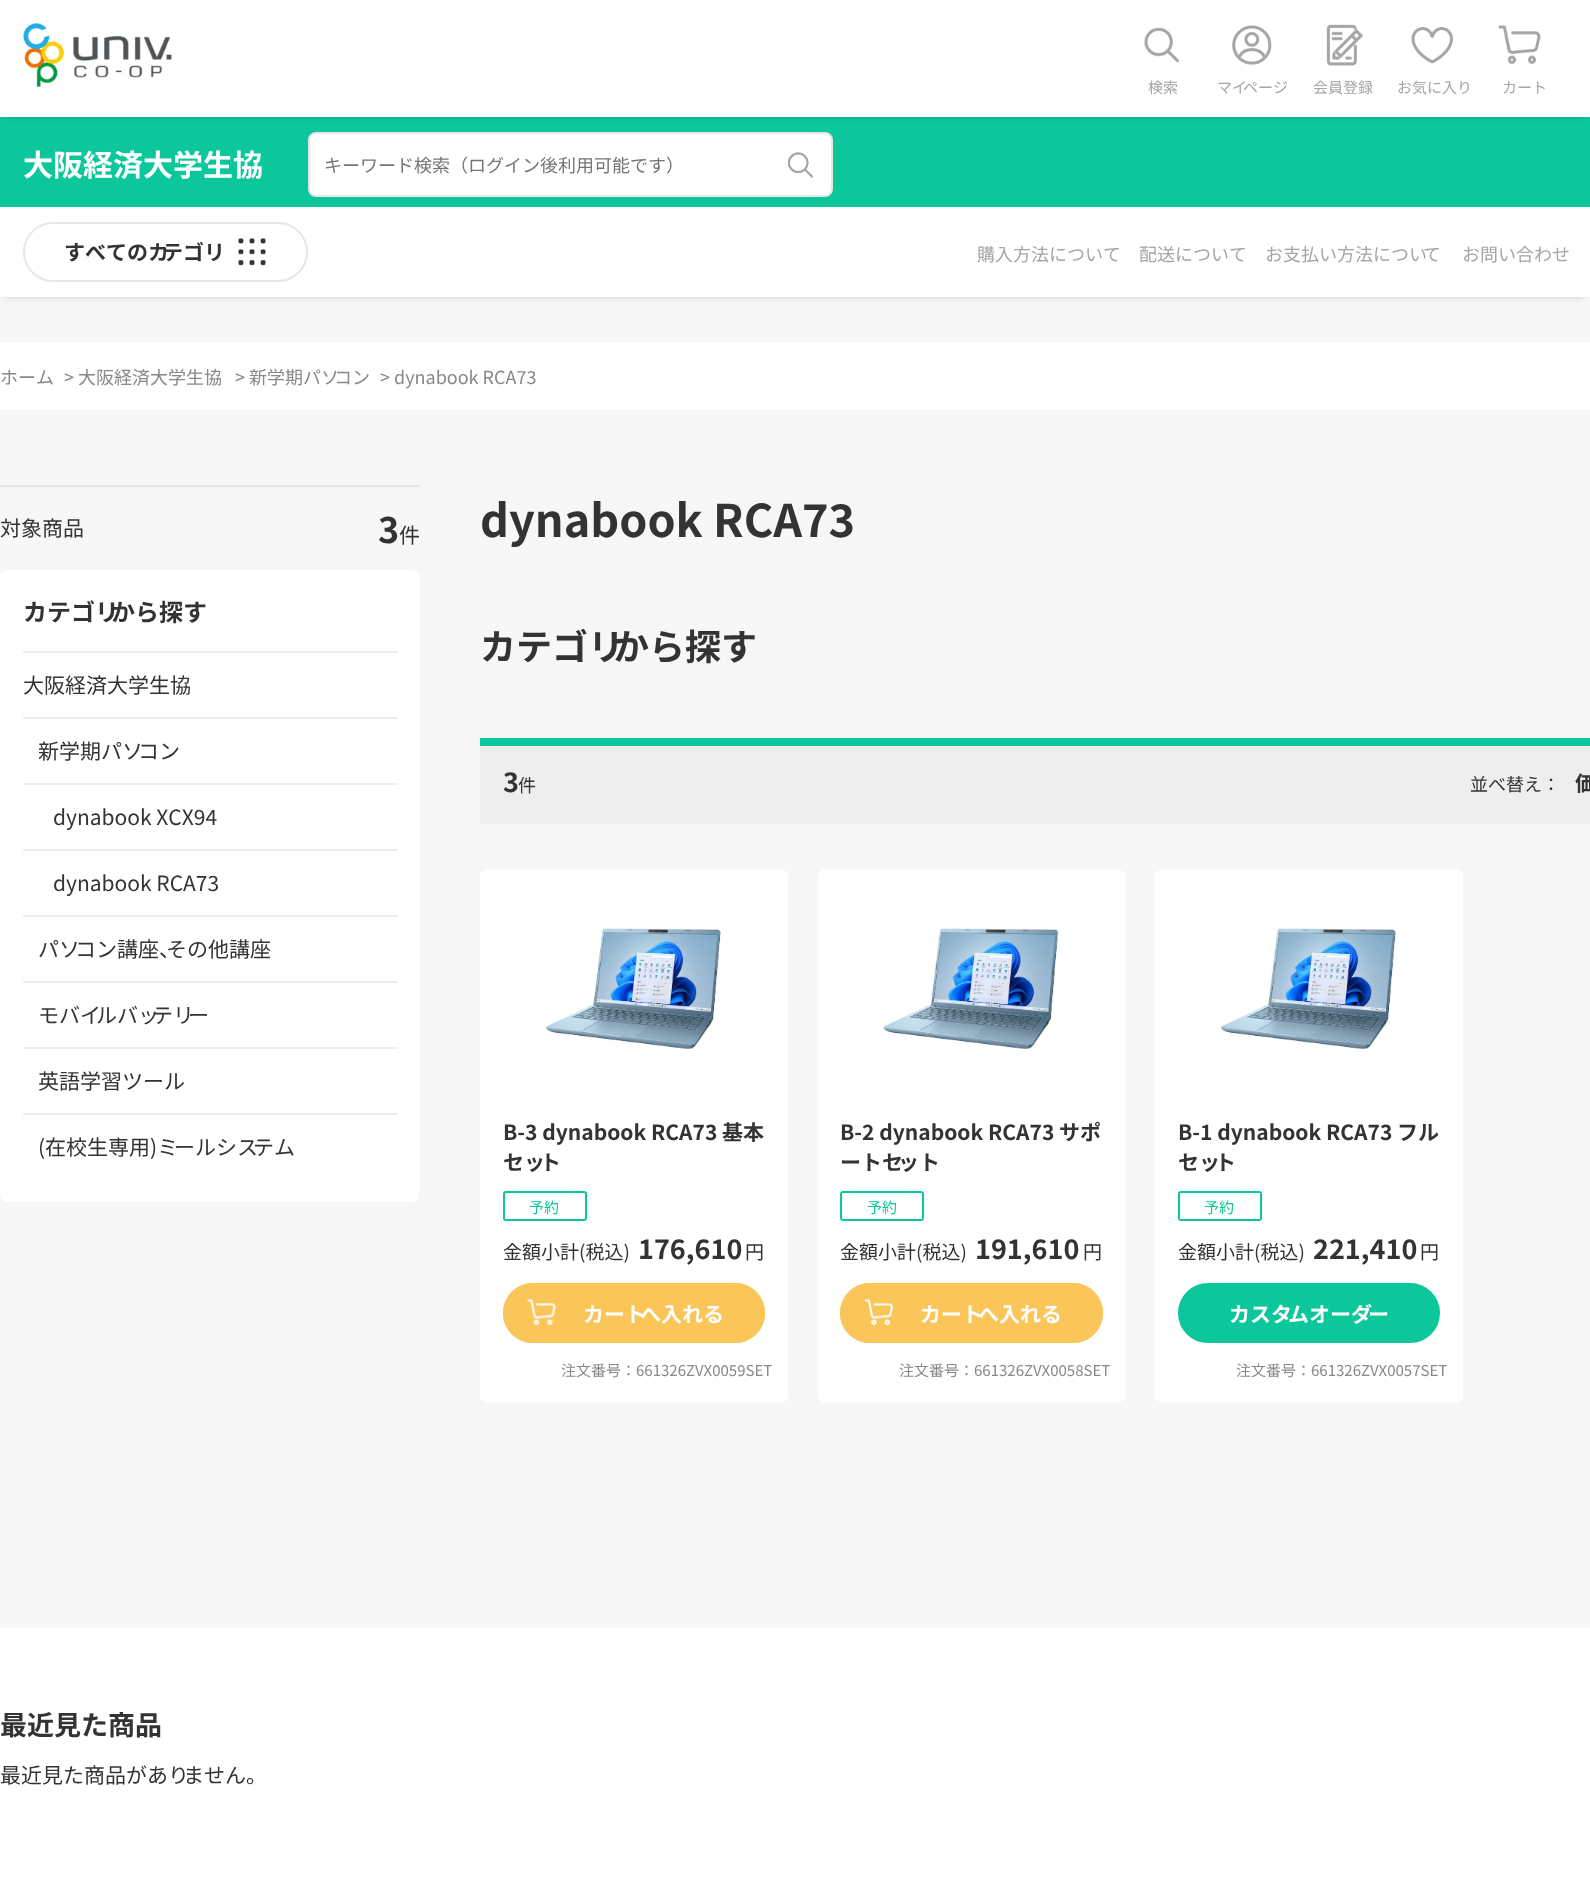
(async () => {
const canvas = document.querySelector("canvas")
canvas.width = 1590
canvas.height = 1882
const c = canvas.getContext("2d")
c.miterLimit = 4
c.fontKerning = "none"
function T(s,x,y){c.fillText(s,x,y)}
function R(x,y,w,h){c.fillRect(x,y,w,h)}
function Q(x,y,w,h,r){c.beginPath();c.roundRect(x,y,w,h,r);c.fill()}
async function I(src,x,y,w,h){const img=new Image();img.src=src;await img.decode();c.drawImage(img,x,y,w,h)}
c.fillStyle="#f7f7f7"
R(0,0,1590,1882)
c.fillStyle="#00000033"
c.filter="blur(4.5px)"
c.beginPath()
c.rect(5,125,1581,171)
c.fill()
c.filter="none"
c.fillStyle="#0dc79c"
R(0,117,1590,90)
c.fillStyle="#00000033"
c.filter="blur(4.5px)"
c.beginPath()
c.rect(5,8,1581,108)
c.fill()
c.filter="none"
c.fillStyle="#fff"
R(0,0,1590,117)
await I("1.png",23,23,149,64)
await I("2.png",1144,27,35,36)
c.font="15px Noto Sans JP"
c.fillStyle="#a5a5a5"
T("検索",1148,93)
await I("3.png",1232,25,40,40)
T("マイ",1217,93)
T("ページ",1243,93)
await I("4.png",1326,24,37,42)
T("会員登録",1313,93)
await I("5.png",1411,27,43,37)
T("お気に入り",1397,93)
await I("6.png",1498,25,43,39)
T("カート",1502,93)
c.font="bold 30px Noto Sans JP"
c.fillStyle="#fff"
T("大阪経済大学生協",23,176)
c.beginPath()
c.roundRect(309,133,523,63,7)
c.fill()
c.strokeStyle="#e6e6e6"
c.lineWidth=2
c.stroke()
c.font="18px Noto Sans JP"
c.fillStyle="#757575"
T("キーワード検索（ログイン後利用可能です）",324,172)
await I("7.png",788,152,25,26)
c.fillStyle="#fff"
R(0,207,1590,90)
c.beginPath()
c.roundRect(24,223,283,58,29)
c.stroke()
await I("8.png",238,238,28,28)
c.font="bold 21px Noto Sans JP"
c.fillStyle="#333"
T("すべてのカ",64,260)
T("テゴリ",162,260)
c.font="18px Noto Sans JP"
c.fillStyle="#a5a5a5"
T("購入方法について",977,261)
T("配送について",1139,261)
T("お支払い方法につい",1265,261)
T("て",1423,261)
T("お問い合わせ",1462,261)
c.fillStyle="#fff"
R(0,342,1590,68)
c.fillStyle="#888"
T("ホーム",0,384)
T("> 大阪経済大学生協",64,384)
T("> 新学期パソ",235,384)
T("コン",334,384)
T("> dynabook RCA73",380,384)
c.fillStyle="#e6e6e6"
R(0,485,420,2)
c.font="21px Noto Sans JP"
c.fillStyle="#333"
T("対象商品",0,536)
c.font="bold 36px Noto Sans JP"
T("3",378,543)
c.font="21px Noto Sans JP"
T("件",399,543)
c.fillStyle="#fff"
Q(0,570,420,632,8)
c.font="bold 24px Noto Sans JP"
c.fillStyle="#333"
T("カテゴリ",23,621)
T("から探す",111,621)
c.fillStyle="#eee"
R(23,651,375,2)
c.font="21px Noto Sans JP"
c.fillStyle="#333"
T("大阪経済大学生協",23,693)
c.fillStyle="#eee"
R(23,717,375,2)
c.fillStyle="#333"
T("新学期パソ",38,759)
T("コン",138,759)
c.fillStyle="#eee"
R(23,783,375,2)
c.fillStyle="#333"
T("dynabook XCX94",53,825)
c.fillStyle="#eee"
R(23,849,375,2)
c.fillStyle="#333"
T("dynabook RCA73",53,891)
c.fillStyle="#eee"
R(23,915,375,2)
c.fillStyle="#333"
T("パソ",38,957)
T("コン講座、",75,957)
T("その他講座",166,957)
c.fillStyle="#eee"
R(23,981,375,2)
c.fillStyle="#333"
T("モバイ",38,1023)
T("ルバッ",96,1023)
T("テリ",152,1023)
T("ー",188,1023)
c.fillStyle="#eee"
R(23,1047,375,2)
c.fillStyle="#333"
T("英語学習ツール",38,1089)
c.fillStyle="#eee"
R(23,1113,375,2)
c.fillStyle="#333"
T("(在校生専用)ミ",38,1155)
T("ールシス",174,1155)
T("テム",253,1155)
c.font="bold 45px Noto Sans JP"
T("dynabook RCA73",480,537)
c.font="bold 36px Noto Sans JP"
T("カテゴリ",480,660)
T("から探す",613,660)
c.fillStyle="#eee"
R(480,746,1110,78)
c.fillStyle="#0dc79c"
R(480,738,1110,8)
c.font="bold 27px Noto Sans JP"
c.fillStyle="#333"
T("3",503,792)
c.font="18px Noto Sans JP"
T("件",518,792)
T("並べ替え：",1470,791)
c.font="bold 21px Noto Sans JP"
T("価",1575,791)
c.fillStyle="#fff"
Q(480,869,308,534,8)
await I("9.png",546,928,175,121)
c.fillStyle="#333"
T("B-3 dynabook RCA73 基本",503,1140)
T("セッ",503,1170)
T("ト",540,1170)
c.beginPath()
c.roundRect(504,1192,82,28,2)
c.strokeStyle="#0dc79c"
c.stroke()
c.font="15px Noto Sans JP"
c.fillStyle="#0dc79c"
T("予約",529,1213)
c.font="19px Noto Sans JP"
c.fillStyle="#333"
T("金額小計(税込)",503,1259)
c.font="bold 27px Noto Sans JP"
T("176,610",638,1259)
c.font="19px Noto Sans JP"
T("円",745,1259)
c.fillStyle="#fac559"
Q(503,1283,262,60,30)
await I("10.png",527,1299,29,27)
c.beginPath()
c.roundRect(504,1284,260,58,29)
c.strokeStyle="#fac559"
c.stroke()
c.font="bold 21px Noto Sans JP"
c.fillStyle="#fff"
T("カート",583,1322)
T("へ入れる",640,1322)
c.font="15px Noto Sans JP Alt"
c.fillStyle="#888"
T("注文番号：661326ZVX0059SET",561,1376)
c.fillStyle="#fff"
Q(818,869,307,534,8)
await I("11.png",883,928,176,121)
c.font="bold 21px Noto Sans JP Alt"
c.fillStyle="#333"
T("B-2 dynabook RCA73 サポ",840,1140)
c.font="bold 21px Noto Sans JP"
T("ートセ",840,1170)
T("ット",898,1170)
c.beginPath()
c.roundRect(841,1192,82,28,2)
c.strokeStyle="#0dc79c"
c.stroke()
c.font="15px Noto Sans JP"
c.fillStyle="#0dc79c"
T("予約",867,1213)
c.font="19px Noto Sans JP"
c.fillStyle="#333"
T("金額小計(税込)",840,1259)
c.font="bold 27px Noto Sans JP"
T("191,610",975,1259)
c.font="19px Noto Sans JP"
T("円",1083,1259)
c.fillStyle="#fac559"
Q(840,1283,263,60,30)
await I("12.png",865,1299,28,27)
c.beginPath()
c.roundRect(841,1284,261,58,29)
c.strokeStyle="#fac559"
c.stroke()
c.font="bold 21px Noto Sans JP"
c.fillStyle="#fff"
T("カート",920,1322)
T("へ入れる",978,1322)
c.font="15px Noto Sans JP Alt"
c.fillStyle="#888"
T("注文番号：661326ZVX0058SET",899,1376)
c.fillStyle="#fff"
Q(1155,869,308,534,8)
await I("9.png",1221,928,175,121)
c.font="bold 21px Noto Sans JP Alt"
c.fillStyle="#333"
T("B-1 dynabook RCA73 フル",1178,1140)
c.font="bold 21px Noto Sans JP"
T("セッ",1178,1170)
T("ト",1215,1170)
c.beginPath()
c.roundRect(1179,1192,82,28,2)
c.strokeStyle="#0dc79c"
c.stroke()
c.font="15px Noto Sans JP"
c.fillStyle="#0dc79c"
T("予約",1204,1213)
c.font="19px Noto Sans JP"
c.fillStyle="#333"
T("金額小計(税込)",1178,1259)
c.font="bold 27px Noto Sans JP"
T("221,410",1313,1259)
c.font="19px Noto Sans JP"
T("円",1420,1259)
c.fillStyle="#0dc79c"
c.beginPath()
c.roundRect(1179,1284,260,58,29)
c.fill()
c.stroke()
c.font="bold 21px Noto Sans JP"
c.fillStyle="#fff"
T("カスタ",1229,1322)
T("ムオーダ",1288,1322)
T("ー",1368,1322)
c.font="15px Noto Sans JP Alt"
c.fillStyle="#888"
T("注文番号：661326ZVX0057SET",1236,1376)
c.fillStyle="#fff"
R(0,1628,1590,254)
c.font="bold 27px Noto Sans JP"
c.fillStyle="#333"
T("最近見た商品",0,1735)
c.font="21px Noto Sans JP"
T("最近見た商品があり",0,1783)
T("ません。",183,1783)
})()
